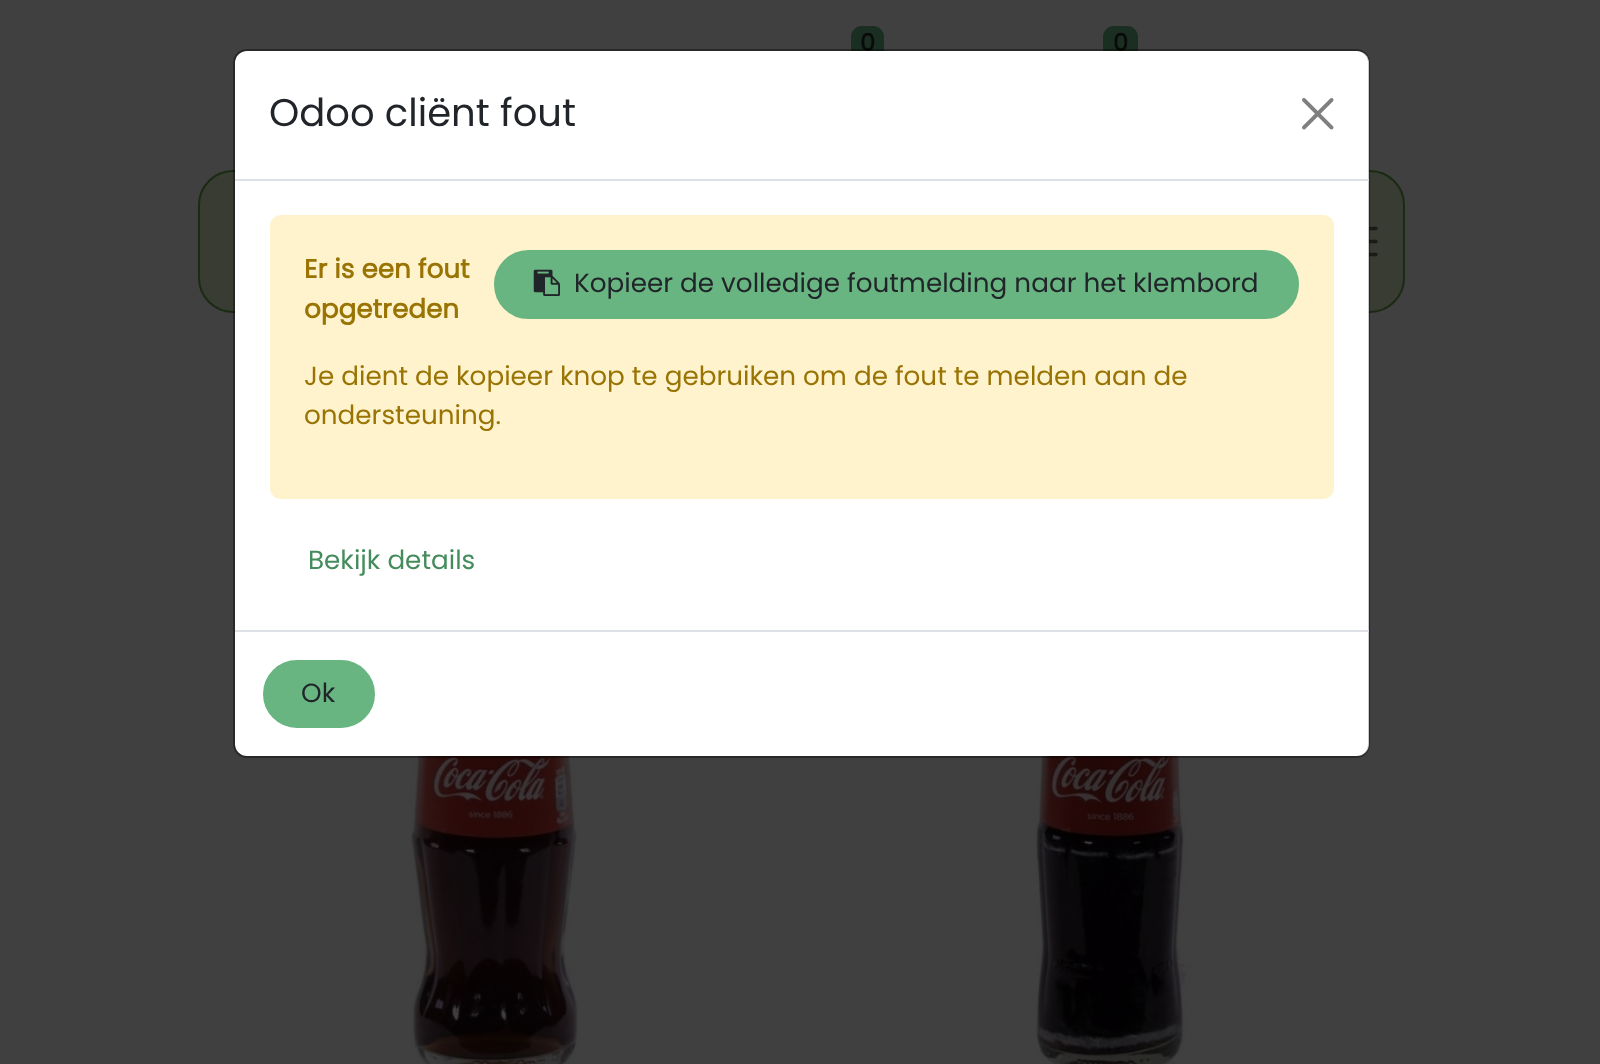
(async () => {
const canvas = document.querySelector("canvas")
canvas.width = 1600
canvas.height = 1064
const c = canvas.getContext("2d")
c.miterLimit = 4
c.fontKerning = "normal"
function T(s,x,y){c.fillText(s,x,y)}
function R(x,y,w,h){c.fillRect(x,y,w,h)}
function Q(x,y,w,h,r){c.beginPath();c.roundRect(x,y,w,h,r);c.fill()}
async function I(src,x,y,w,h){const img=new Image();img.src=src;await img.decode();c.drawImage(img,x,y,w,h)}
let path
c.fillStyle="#404040"
R(0,0,1600,1064)
c.fillStyle="#1a2e21"
Q(851,26,33,35,11)
c.font="bold 24px Poppins"
c.fillStyle="#090a0b"
T("0",860,51)
c.fillStyle="#1a2e21"
Q(1103,26,35,35,11)
c.fillStyle="#090a0b"
T("0",1113,51)
c.fillStyle="#393c32"
c.beginPath()
c.roundRect(199,171,1205,141,34)
c.fill()
c.strokeStyle="#1b2a13"
c.lineWidth=2
c.stroke()
path = new Path2D("M1340 228.5h36m-36 13h36m-36 13h36")
c.strokeStyle="#1a1b17"
c.lineWidth=3.3
c.lineCap="round"
c.stroke(path)
await I("1.png",410,756,175,308)
await I("2.png",1035,756,157,308)
c.beginPath()
c.roundRect(234,50,1135,707,13)
c.strokeStyle="#00000033"
c.lineWidth=2
c.stroke()
c.fillStyle="#fff"
Q(235,51,1134,705,12)
c.beginPath()
c.roundRect(234,50,1135,707,13)
c.stroke()
c.fillStyle="#dee2e6"
R(235,179,1134,2)
c.font="38.5px Poppins"
c.fillStyle="#212529"
T("Odoo cliënt fout",269,126)
await I("3.png",1302,98,32,32)
c.fillStyle="#fff3cd"
Q(270,215,1064,284,11)
c.font="bold 26.25px Poppins"
c.fillStyle="#997404"
T("Er is een fout",304,278)
T("opgetreden",304,318)
c.fillStyle="#68b581"
c.beginPath()
c.roundRect(495,251,803,67,33.5)
c.fill()
c.strokeStyle="#68b581"
c.stroke()
await I("4.png",533,269,27,27)
c.font="26.25px Poppins"
c.fillStyle="#212529"
T("Kopieer de volledige foutmelding naar het klembord",574,292)
c.fillStyle="#997404"
T("Je dient de kopieer knop te gebruiken om de fout te melden aan de",304,385)
T("ondersteuning.",304,424)
c.fillStyle="#458c5c"
T("Bekijk details",308,569)
c.fillStyle="#dee2e6"
R(235,630,1134,2)
c.fillStyle="#68b581"
c.beginPath()
c.roundRect(264,661,110,66,33)
c.fill()
c.stroke()
c.fillStyle="#212529"
T("Ok",301,702)
})()
